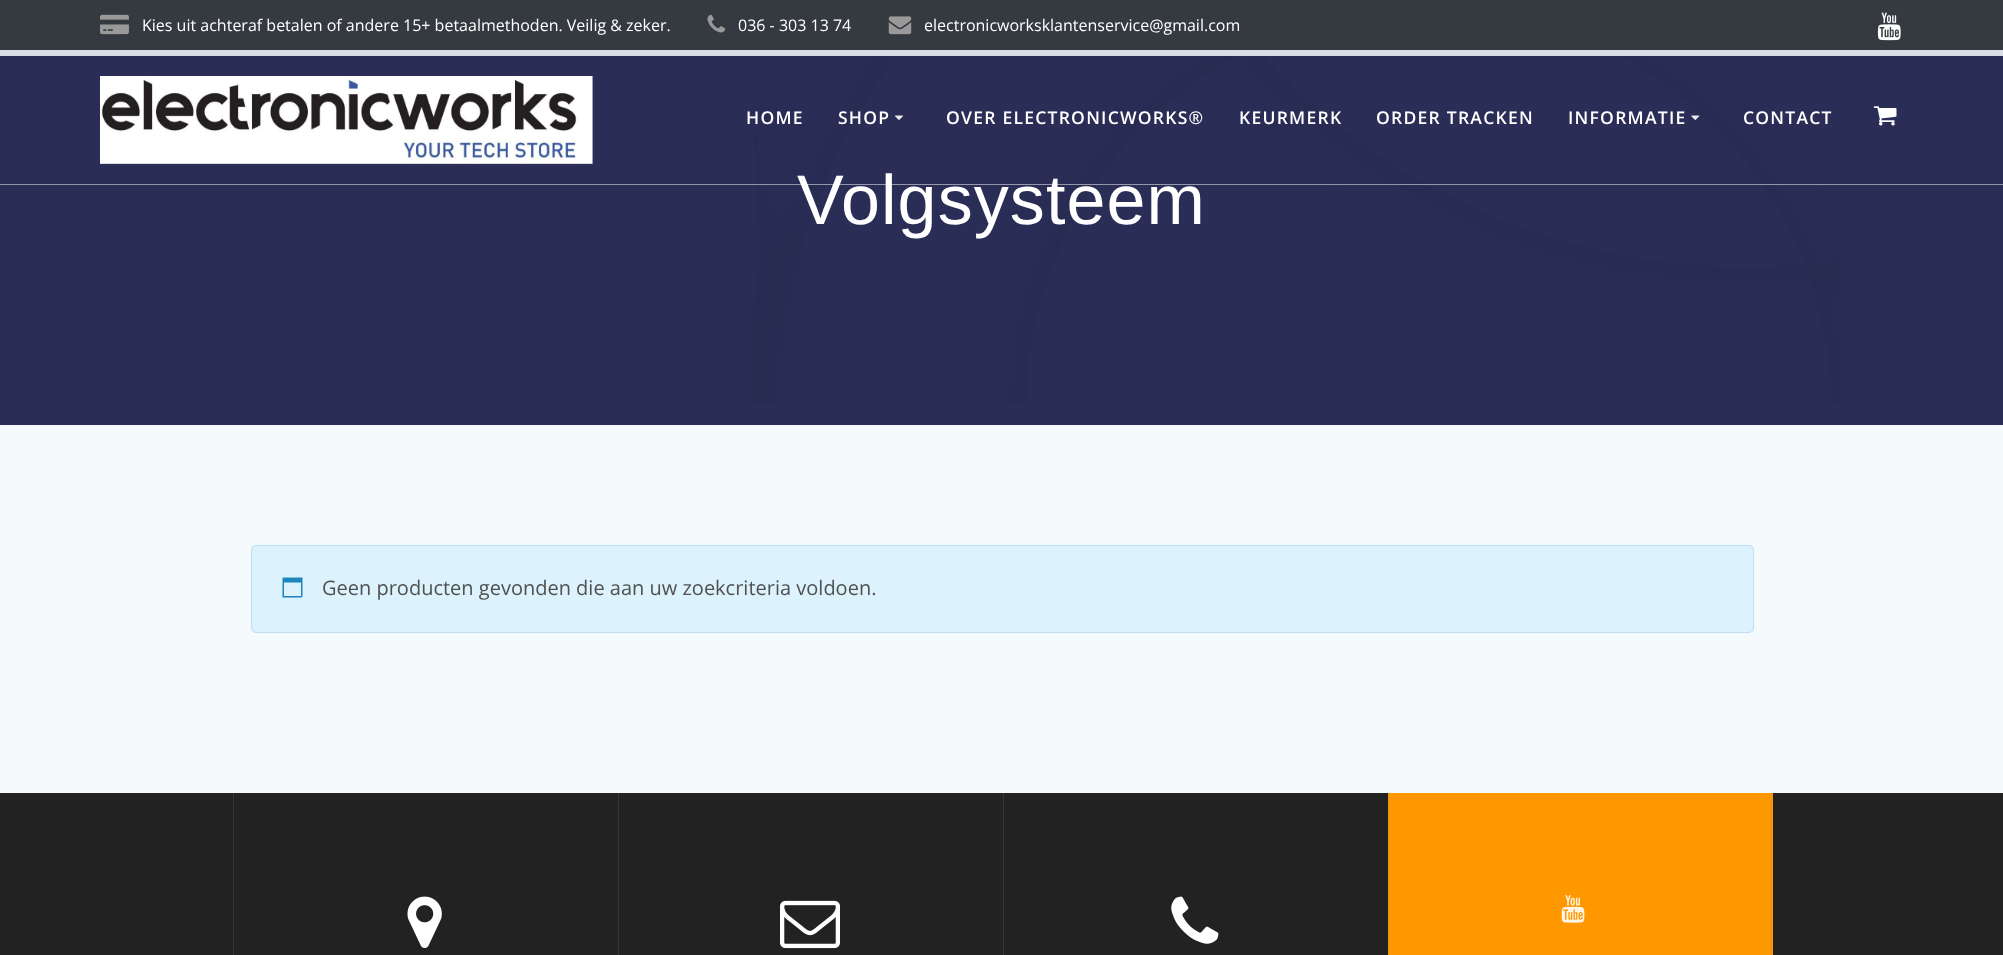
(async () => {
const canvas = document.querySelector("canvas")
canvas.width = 2003
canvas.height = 955
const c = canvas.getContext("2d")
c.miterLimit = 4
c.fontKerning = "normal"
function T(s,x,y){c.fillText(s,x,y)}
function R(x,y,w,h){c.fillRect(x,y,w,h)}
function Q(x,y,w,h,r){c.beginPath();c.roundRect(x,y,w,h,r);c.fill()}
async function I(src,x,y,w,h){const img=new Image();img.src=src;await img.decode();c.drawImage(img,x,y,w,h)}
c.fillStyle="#f5fafd"
R(0,0,2003,955)
c.fillStyle="#343a40"
R(0,0,2003,50)
c.fillStyle="#d8dee7"
R(0,50,2003,6)
await I("1.png",100,14,29,21)
c.font="16px Open Sans"
c.fillStyle="#fff"
T("Kies uit achteraf betalen of andere 15+ betaalmethoden. Veilig & zeker.",142,31)
await I("2.png",707,14,19,19)
T("036 - 303 13 74",738,31)
await I("3.png",888,16,24,19)
T("electronicworksklantenservice@gmail.com",924,31)
await I("4.png",1877,12,24,29)
c.fillStyle="#2a2e57"
R(0,56,2003,369)
await I("9.png",753,56,1087,348)
c.letterSpacing="1.1px"
c.font="70px Liberation Sans"
c.fillStyle="#fff"
T("Volgsysteem",797,224)
c.fillStyle="#ffffff80"
R(0,184,2003,1)
await I("5.png",100,76,493,88)
c.letterSpacing="1.25px"
c.font="600 17.5px Open Sans"
c.fillStyle="#fff"
T("HOME",746,124)
T("SHOP",838,124)
await I("6.png",895,115,8,5)
T("OVER ELECTRONICWORKS®",946,124)
T("KEURMERK",1239,124)
T("ORDER TRACKEN",1376,124)
T("INFORMATIE",1568,124)
await I("7.png",1691,115,9,5)
T("CONTACT",1743,124)
await I("8.png",1873,106,24,20)
c.fillStyle="#dcf2fc"
Q(251,545,1503,88,5)
c.beginPath()
c.roundRect(251.5,545.5,1502,87,4.5)
c.strokeStyle="#4a90e233"
c.stroke()
await I("10.png",282,577,21,21)
c.letterSpacing="0px"
c.font="20px Open Sans"
c.fillStyle="#515151"
T("Geen producten gevonden die aan uw zoekcriteria voldoen.",322,595)
c.fillStyle="#222"
R(0,793,2003,162)
c.fillStyle="#353535"
R(233,793,1,162)
await I("11.png",407,896,35,52)
R(618,793,1,162)
await I("12.png",780,900,60,49)
R(1003,793,1,162)
await I("13.png",1171,896,48,48)
c.fillStyle="#ff9800"
R(1389,793,384,162)
c.fillStyle="#e6931a"
R(1771,793,1,162)
R(1388,793,1,162)
await I("14.png",1561,895,24,28)
})()
